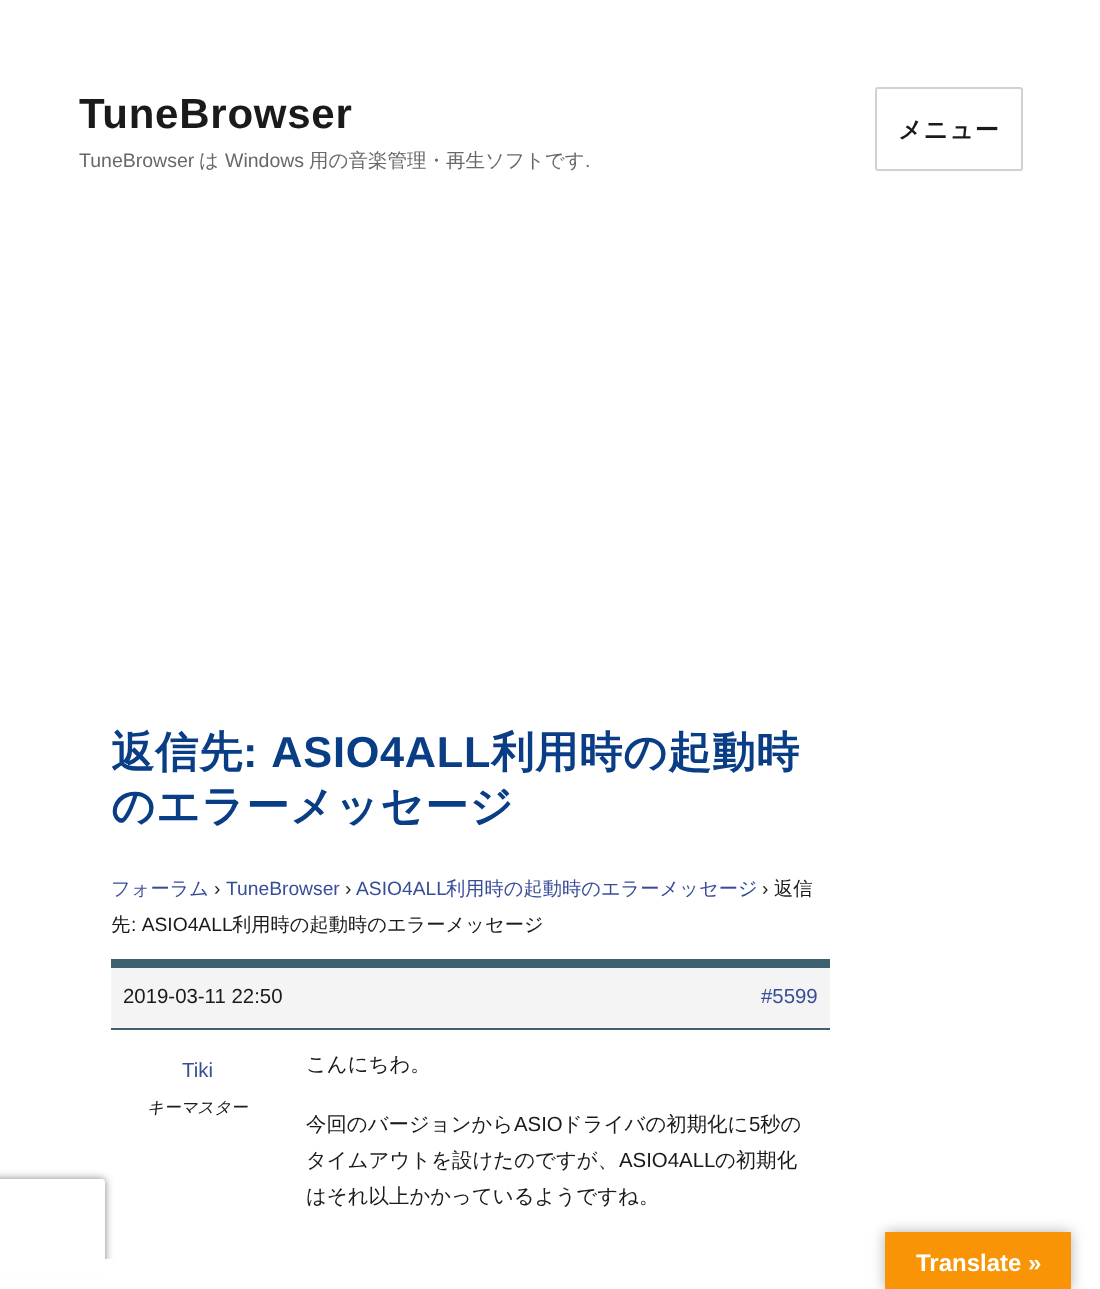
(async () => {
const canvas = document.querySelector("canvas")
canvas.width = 1100
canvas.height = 1289
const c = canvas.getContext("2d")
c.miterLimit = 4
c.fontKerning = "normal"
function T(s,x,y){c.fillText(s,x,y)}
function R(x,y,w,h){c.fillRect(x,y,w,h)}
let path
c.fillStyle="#fff"
R(0,0,1100,1289)
c.letterSpacing="0.75px"
c.font="bold 42px Liberation Sans"
c.fillStyle="#1a1a1a"
T("TuneBrowser",79,128)
c.letterSpacing="0px"
c.font="19.5px Liberation Sans"
c.fillStyle="#686868"
T("TuneBrowser",79,167)
c.font="500 19.5px WenQuanYi Zen Hei"
T("は",199,167)
c.font="19.5px Liberation Sans"
T("Windows",225,167)
c.font="500 19.5px WenQuanYi Zen Hei"
T("用の音楽管理・再生ソフトです",309,167)
c.font="19.5px Liberation Sans"
T(".",585,167)
c.beginPath()
c.roundRect(876,88,146,82,2)
c.strokeStyle="#d1d1d1"
c.lineWidth=2
c.stroke()
c.letterSpacing="1px"
c.font="bold 24px WenQuanYi Zen Hei"
c.fillStyle="#1a1a1a"
T("メニュー",898,138)
c.letterSpacing="0.75px"
c.font="bold 43.25px WenQuanYi Zen Hei"
c.fillStyle="#093d86"
T("返信先",111,767)
c.wordSpacing="2px"
c.font="bold 43.25px Liberation Sans"
T(": ASIO4ALL",243,767)
c.wordSpacing="0px"
c.font="bold 43.25px WenQuanYi Zen Hei"
T("利用時の起動時",491,767)
T("のエラーメッセージ",111,821)
c.letterSpacing="0px"
c.font="500 19.25px WenQuanYi Zen Hei"
c.fillStyle="#384d98"
T("フォーラム",111,895)
c.font="19.25px Liberation Sans"
c.fillStyle="#1a1a1a"
T("›",214,895)
c.fillStyle="#384d98"
T("TuneBrowser",226,895)
c.fillStyle="#1a1a1a"
T("›",345,895)
c.fillStyle="#384d98"
T("ASIO4ALL",356,895)
c.font="500 19.25px WenQuanYi Zen Hei"
T("利用時の起動時のエラーメッセージ",446,895)
c.font="19.25px Liberation Sans"
c.fillStyle="#1a1a1a"
T("›",762,895)
c.font="500 19.25px WenQuanYi Zen Hei"
T("返信",774,895)
T("先",111,931)
c.wordSpacing="1px"
c.font="19.25px Liberation Sans"
T(": ASIO4ALL",131,931)
c.wordSpacing="0px"
c.font="500 19.25px WenQuanYi Zen Hei"
T("利用時の起動時のエラーメッセージ",232,931)
c.fillStyle="#f4f4f4"
R(111,968,719,60)
c.fillStyle="#3e606f"
R(111,959,719,9)
R(111,1028,719,2)
c.font="20.4px Liberation Sans"
c.fillStyle="#1a1a1a"
T("2019-03-11 22:50",123,1003)
c.fillStyle="#384d98"
T("#5599",761,1003)
T("Tiki",182,1077)
c.font="italic 500 16.5px WenQuanYi Zen Hei"
c.fillStyle="#1a1a1a"
T("キーマスター",147,1113)
c.font="500 20.4px WenQuanYi Zen Hei"
T("こんにちわ。",306,1071)
T("今回のバージョンから",306,1131)
c.font="20.4px Liberation Sans"
T("ASIO",514,1131)
c.font="500 20.4px WenQuanYi Zen Hei"
T("ドライバの初期化に",562,1131)
c.font="20.4px Liberation Sans"
T("5",749,1131)
c.font="500 20.4px WenQuanYi Zen Hei"
T("秒の",760,1131)
T("タイムアウトを設けたのですが、",306,1167)
c.font="20.4px Liberation Sans"
T("ASIO4ALL",619,1167)
c.font="500 20.4px WenQuanYi Zen Hei"
T("の初期化",715,1167)
T("はそれ以上かかっているようですね。",306,1203)
c.save()
path = new Path2D("M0 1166h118v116h-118zm-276 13h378c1.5 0 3 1.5 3 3v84c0 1.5-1.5 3-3 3h-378c-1.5 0-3-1.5-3-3v-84c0-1.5 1.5-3 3-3z")
c.clip(path,"evenodd")
c.fillStyle="#808080"
c.filter="blur(4px)"
c.beginPath()
c.roundRect(-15,1179,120,90,3)
c.fill()
c.filter="none"
c.restore()
c.fillStyle="#fff"
R(0,1259,113,18)
c.fillStyle="#0000004d"
c.filter="blur(7px)"
c.beginPath()
c.rect(885,1232,186,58)
c.fill()
c.filter="none"
c.fillStyle="#f89406"
R(885,1232,186,57)
c.font="bold 24px Liberation Sans"
c.fillStyle="#fff"
T("Translate »",916,1271)
})()
